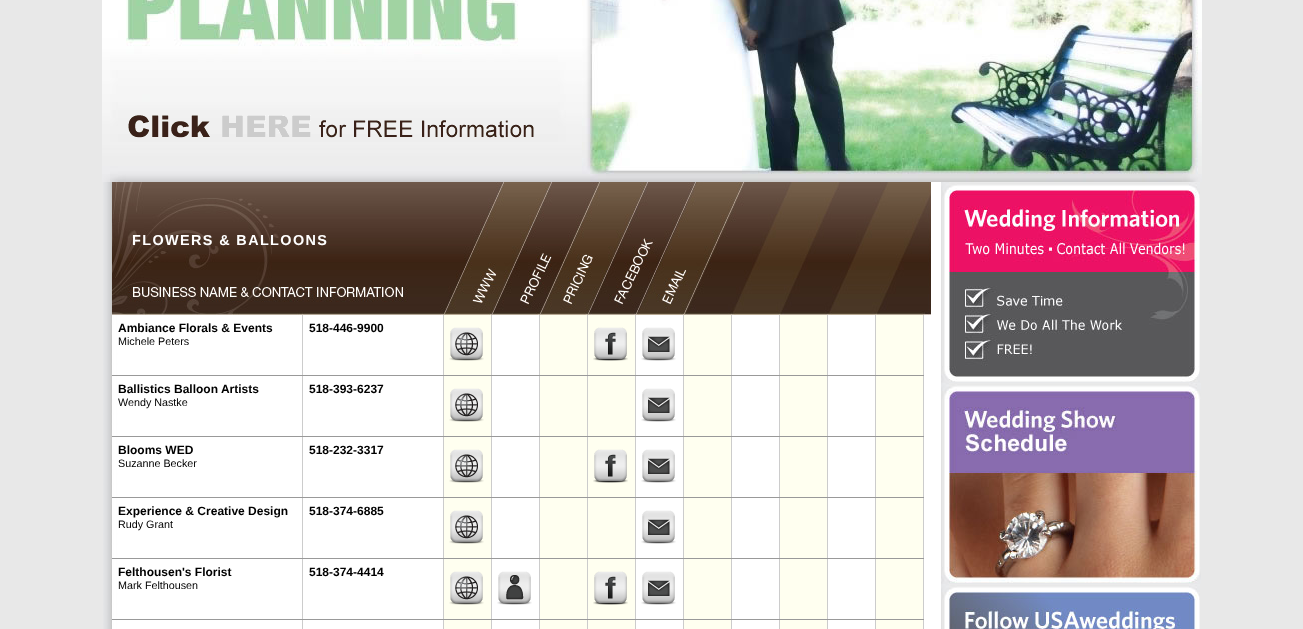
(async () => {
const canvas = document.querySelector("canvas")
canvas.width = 1303
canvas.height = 629
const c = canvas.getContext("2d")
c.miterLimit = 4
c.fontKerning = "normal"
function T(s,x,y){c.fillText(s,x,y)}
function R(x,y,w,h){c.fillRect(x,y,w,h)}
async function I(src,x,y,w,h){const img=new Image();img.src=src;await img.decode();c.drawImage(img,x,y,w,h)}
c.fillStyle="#e8e8e8"
R(0,0,1303,629)
await I("1.png",103,182,838,447)
await I("2.png",102,0,1100,182)
await I("3.png",128,115,406,23)
await I("4.png",112,182,819,133)
c.letterSpacing="1.4px"
c.font="bold 14.4px Liberation Sans"
c.fillStyle="#fff"
T("FLOWERS & BALLOONS",132,245)
c.fillStyle="#ccc"
R(302,315,1,314)
c.fillStyle="#999"
R(112,375,191,1)
c.letterSpacing="0px"
c.font="bold 12px Liberation Sans"
c.fillStyle="#000"
T("Ambiance Florals & Events",118,332)
c.font="10.75px Liberation Sans"
T("Michele Peters",118,345)
c.fillStyle="#ccc"
R(443,315,1,314)
c.fillStyle="#999"
R(303,375,141,1)
c.font="bold 12px Liberation Sans"
c.fillStyle="#000"
T("518-446-9900",309,332)
c.fillStyle="#fffff0"
R(444,315,47,60)
c.fillStyle="#ccc"
R(491,315,1,314)
c.fillStyle="#999"
R(444,375,48,1)
await I("5.png",449,327,35,34)
c.fillStyle="#ccc"
R(539,315,1,314)
c.fillStyle="#999"
R(492,375,48,1)
c.fillStyle="#fffff0"
R(540,315,47,60)
c.fillStyle="#ccc"
R(587,315,1,314)
c.fillStyle="#999"
R(540,375,48,1)
c.fillStyle="#fffff0"
R(588,315,47,60)
c.fillStyle="#ccc"
R(635,315,1,314)
c.fillStyle="#999"
R(588,375,48,1)
await I("6.png",593,327,35,34)
c.fillStyle="#ccc"
R(683,315,1,314)
c.fillStyle="#999"
R(636,375,48,1)
await I("7.png",641,327,35,34)
c.fillStyle="#fffff0"
R(684,315,47,60)
c.fillStyle="#ccc"
R(731,315,1,314)
c.fillStyle="#999"
R(684,375,48,1)
c.fillStyle="#ccc"
R(779,315,1,314)
c.fillStyle="#999"
R(732,375,48,1)
c.fillStyle="#fffff0"
R(780,315,47,60)
c.fillStyle="#ccc"
R(827,315,1,314)
c.fillStyle="#999"
R(780,375,48,1)
c.fillStyle="#ccc"
R(875,315,1,314)
c.fillStyle="#999"
R(828,375,48,1)
c.fillStyle="#fffff0"
R(876,315,47,60)
c.fillStyle="#ccc"
R(923,315,1,314)
c.fillStyle="#999"
R(876,375,48,1)
R(112,436,812,1)
c.fillStyle="#000"
T("Ballistics Balloon Artists",118,393)
c.font="10.75px Liberation Sans"
T("Wendy Nastke",118,406)
c.font="bold 12px Liberation Sans"
T("518-393-6237",309,393)
c.fillStyle="#fffff0"
R(444,376,47,60)
await I("5.png",449,388,35,34)
R(540,376,47,60)
R(588,376,47,60)
await I("7.png",641,388,35,34)
R(684,376,47,60)
R(780,376,47,60)
R(876,376,47,60)
c.fillStyle="#999"
R(112,497,812,1)
c.fillStyle="#000"
T("Blooms WED",118,454)
c.font="10.75px Liberation Sans"
T("Suzanne Becker",118,467)
c.font="bold 12px Liberation Sans"
T("518-232-3317",309,454)
c.fillStyle="#fffff0"
R(444,437,47,60)
await I("5.png",449,449,35,34)
R(540,437,47,60)
R(588,437,47,60)
await I("6.png",593,449,35,34)
await I("7.png",641,449,35,34)
R(684,437,47,60)
R(780,437,47,60)
R(876,437,47,60)
c.fillStyle="#999"
R(112,558,812,1)
c.fillStyle="#000"
T("Experience & Creative Design",118,515)
c.font="10.75px Liberation Sans"
T("Rudy Grant",118,528)
c.font="bold 12px Liberation Sans"
T("518-374-6885",309,515)
c.fillStyle="#fffff0"
R(444,498,47,60)
await I("5.png",449,510,35,34)
R(540,498,47,60)
R(588,498,47,60)
await I("7.png",641,510,35,34)
R(684,498,47,60)
R(780,498,47,60)
R(876,498,47,60)
c.fillStyle="#999"
R(112,619,812,1)
c.fillStyle="#000"
T("Felthousen's Florist",118,576)
c.font="10.75px Liberation Sans"
T("Mark Felthousen",118,589)
c.font="bold 12px Liberation Sans"
T("518-374-4414",309,576)
c.fillStyle="#fffff0"
R(444,559,47,60)
await I("5.png",449,571,35,34)
await I("8.png",497,571,35,34)
R(540,559,47,60)
R(588,559,47,60)
await I("6.png",593,571,35,34)
await I("7.png",641,571,35,34)
R(684,559,47,60)
R(780,559,47,60)
R(876,559,47,60)
R(444,620,47,9)
R(540,620,47,9)
R(588,620,47,9)
R(684,620,47,9)
R(780,620,47,9)
R(876,620,47,9)
await I("9.png",941,182,259,201)
await I("10.png",941,383,260,201)
await I("11.png",941,584,259,45)
})()
